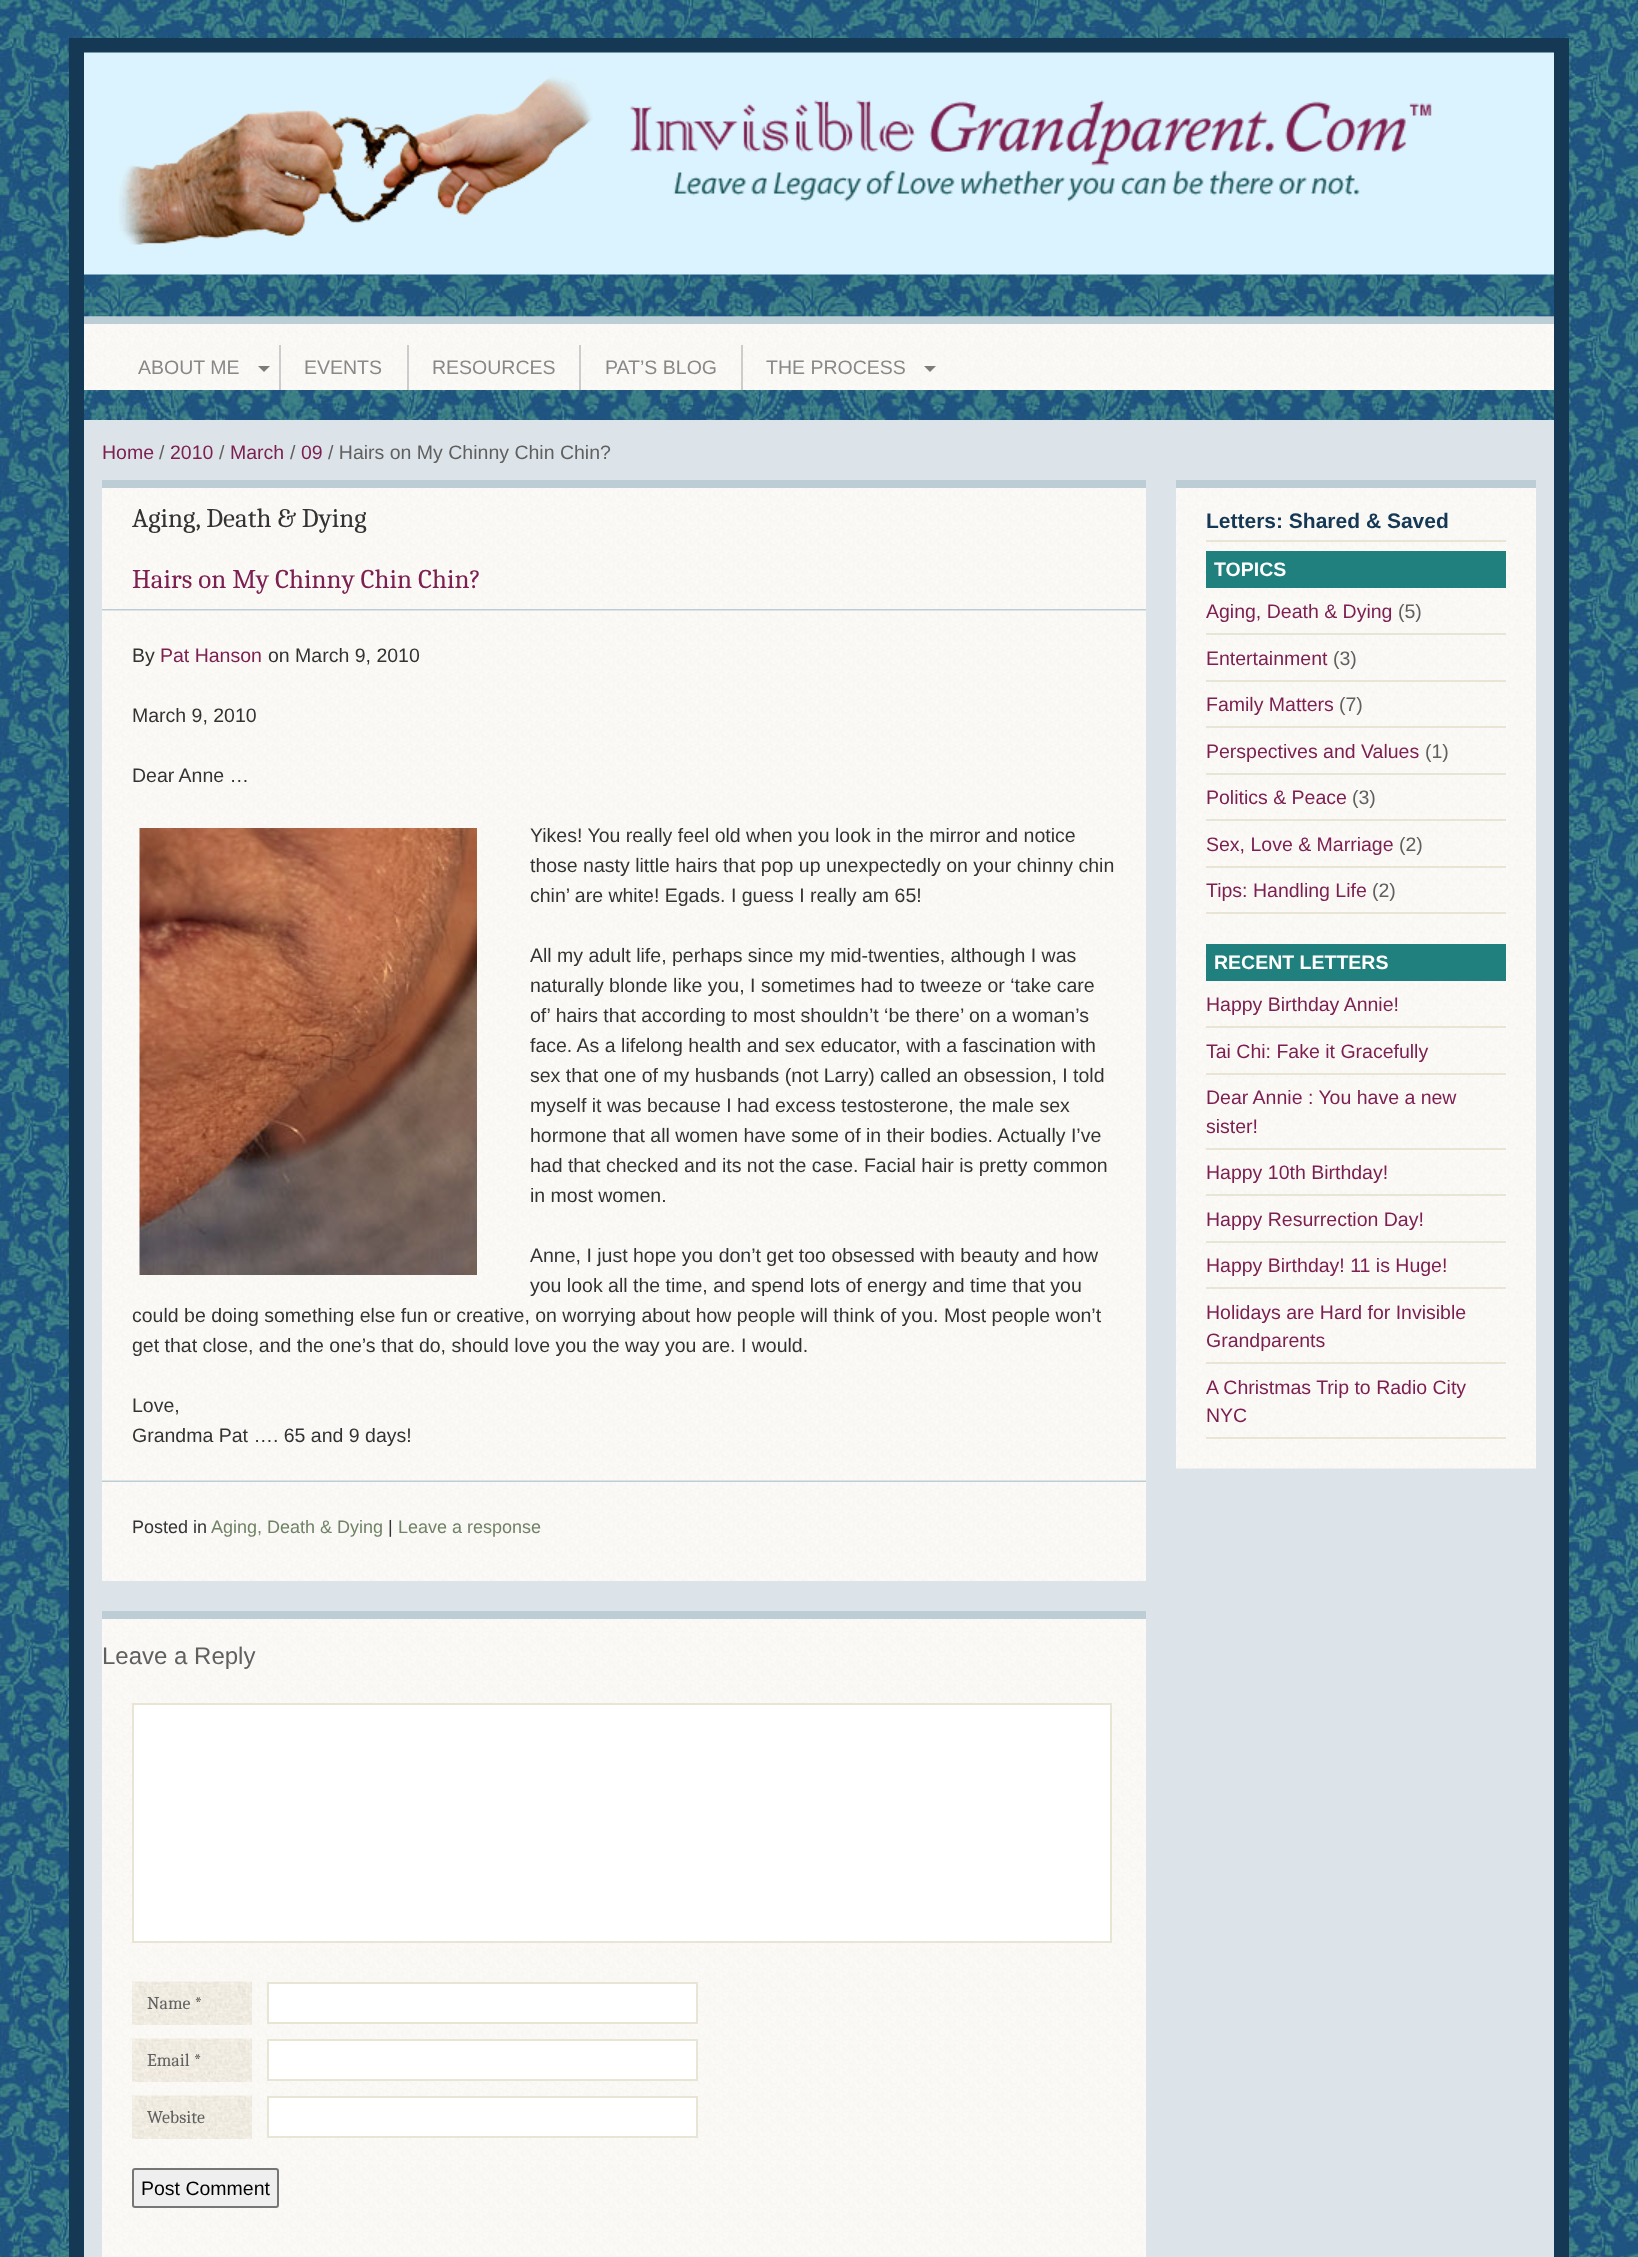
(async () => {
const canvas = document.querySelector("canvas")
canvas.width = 1638
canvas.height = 2257
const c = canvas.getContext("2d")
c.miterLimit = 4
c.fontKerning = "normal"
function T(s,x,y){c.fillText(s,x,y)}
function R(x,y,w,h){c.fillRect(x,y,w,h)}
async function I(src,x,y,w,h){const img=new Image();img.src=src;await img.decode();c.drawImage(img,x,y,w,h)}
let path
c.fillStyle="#fff"
R(0,0,1638,2257)
await I("1.png",0,0,1638,2257)
c.strokeStyle="#153855"
c.lineWidth=15
c.strokeRect(76.5,45.5,1485,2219)
await I("2.png",84,52,1470,223)
await I("3.png",84,316,1470,74)
c.fillStyle="#bdcdd6"
R(84,317,1470,7)
c.fillStyle="#ccc"
R(279,345,2,45)
c.font="19.5px Liberation Sans"
c.fillStyle="#888"
T("ABOUT ME",138,374)
c.fillStyle="#00000080"
path = new Path2D("M258 366h12l-6 6z")
c.fill(path)
c.fillStyle="#ccc"
R(407,345,2,45)
c.fillStyle="#888"
T("EVENTS",304,374)
c.fillStyle="#ccc"
R(579,345,2,45)
c.fillStyle="#888"
T("RESOURCES",432,374)
c.fillStyle="#ccc"
R(741,345,2,45)
c.fillStyle="#888"
T("PAT’S BLOG",605,374)
T("THE PROCESS",766,374)
c.fillStyle="#00000080"
path = new Path2D("M924 366h12l-6 6z")
c.fill(path)
c.fillStyle="#dce4e9"
R(84,420,1470,1837)
c.fillStyle="#7d2051"
T("Home",102,459)
c.fillStyle="#606060"
T("/",159,459)
c.fillStyle="#7d2051"
T("2010",170,459)
c.fillStyle="#606060"
T("/",219,459)
c.fillStyle="#7d2051"
T("March",230,459)
c.fillStyle="#606060"
T("/",290,459)
c.fillStyle="#7d2051"
T("09",301,459)
c.fillStyle="#606060"
T("/ Hairs on My Chinny Chin Chin?",328,459)
await I("4.png",102,488,1044,1093)
c.fillStyle="#bdcdd6"
R(102,480,1044,8)
c.font="27px Caladea"
c.fillStyle="#333"
T("Aging, Death & Dying",132,527)
await I("5.png",102,609,1044,2)
c.fillStyle="#7d2051"
T("Hairs on My Chinny Chin Chin?",132,588)
c.font="19.5px Liberation Sans"
c.fillStyle="#333"
T("By",132,662)
c.fillStyle="#7d2051"
T("Pat Hanson",160,662)
c.fillStyle="#333"
T("on March 9, 2010",268,662)
T("March 9, 2010",132,722)
T("Dear Anne …",132,782)
await I("6.png",139,828,338,447)
T("Yikes! You really feel old when you look in the mirror and notice",530,842)
T("those nasty little hairs that pop up unexpectedly on your chinny chin",530,872)
T("chin’ are white! Egads. I guess I really am 65!",530,902)
T("All my adult life, perhaps since my mid-twenties, although I was",530,962)
T("naturally blonde like you, I sometimes had to tweeze or ‘take care",530,992)
T("of’ hairs that according to most shouldn’t ‘be there’ on a woman’s",530,1022)
T("face. As a lifelong health and sex educator, with a fascination with",530,1052)
T("sex that one of my husbands (not Larry) called an obsession, I told",530,1082)
T("myself it was because I had excess testosterone, the male sex",530,1112)
T("hormone that all women have some of in their bodies. Actually I’ve",530,1142)
T("had that checked and its not the case. Facial hair is pretty common",530,1172)
T("in most women.",530,1202)
T("Anne, I just hope you don’t get too obsessed with beauty and how",530,1262)
T("you look all the time, and spend lots of energy and time that you",530,1292)
T("could be doing something else fun or creative, on worrying about how people will think of you. Most people won’t",132,1322)
T("get that close, and the one’s that do, should love you the way you are. I would.",132,1352)
T("Love,",132,1412)
T("Grandma Pat …. 65 and 9 days!",132,1442)
await I("7.png",102,1480,1044,2)
c.font="18px Liberation Sans"
T("Posted in",132,1533)
c.fillStyle="#708266"
T("Aging, Death & Dying",211,1533)
c.fillStyle="#333"
T("|",388,1533)
c.fillStyle="#708266"
T("Leave a response",398,1533)
await I("8.png",102,1619,1044,638)
c.fillStyle="#bdcdd6"
R(102,1611,1044,8)
c.font="24px Liberation Sans"
c.fillStyle="#606060"
T("Leave a Reply",102,1664)
c.fillStyle="#fff"
c.beginPath()
c.rect(133,1704,978,238)
c.fill()
c.strokeStyle="#e9e5d5"
c.lineWidth=2
c.stroke()
await I("9.png",132,1981,120,44)
c.font="18px Caladea"
c.fillStyle="#606060"
T("Name *",147,2009)
c.fillStyle="#fff"
c.beginPath()
c.rect(268,1983,429,40)
c.fill()
c.stroke()
await I("10.png",132,2038,120,44)
c.fillStyle="#606060"
T("Email *",147,2066)
c.fillStyle="#fff"
c.beginPath()
c.rect(268,2040,429,40)
c.fill()
c.stroke()
await I("11.png",132,2095,120,44)
c.fillStyle="#606060"
T("Website",147,2123)
c.fillStyle="#fff"
c.beginPath()
c.rect(268,2097,429,40)
c.fill()
c.stroke()
c.fillStyle="#efefef"
c.beginPath()
c.roundRect(133,2169,145,38,2)
c.fill()
c.strokeStyle="#767676"
c.stroke()
c.font="19.5px Liberation Sans"
c.fillStyle="#000"
T("Post Comment",141,2195)
await I("12.png",1176,488,360,981)
c.fillStyle="#bdcdd6"
R(1176,480,360,8)
c.fillStyle="#e9e5d5"
R(1206,540,300,2)
c.font="bold 21px Liberation Sans"
c.fillStyle="#153855"
T("Letters: Shared & Saved",1206,528)
c.fillStyle="#20807d"
R(1206,551,300,37)
c.font="bold 19.5px Liberation Sans"
c.fillStyle="#fff"
T("TOPICS",1214,576)
c.fillStyle="#e9e5d5"
R(1206,633,300,2)
c.font="19.5px Liberation Sans"
c.fillStyle="#7d2051"
T("Aging, Death & Dying",1206,618)
c.fillStyle="#606060"
T("(5)",1398,618)
c.fillStyle="#e9e5d5"
R(1206,680,300,2)
c.fillStyle="#7d2051"
T("Entertainment",1206,665)
c.fillStyle="#606060"
T("(3)",1333,665)
c.fillStyle="#e9e5d5"
R(1206,726,300,2)
c.fillStyle="#7d2051"
T("Family Matters",1206,711)
c.fillStyle="#606060"
T("(7)",1339,711)
c.fillStyle="#e9e5d5"
R(1206,773,300,2)
c.fillStyle="#7d2051"
T("Perspectives and Values",1206,758)
c.fillStyle="#606060"
T("(1)",1425,758)
c.fillStyle="#e9e5d5"
R(1206,819,300,2)
c.fillStyle="#7d2051"
T("Politics & Peace",1206,804)
c.fillStyle="#606060"
T("(3)",1352,804)
c.fillStyle="#e9e5d5"
R(1206,866,300,2)
c.fillStyle="#7d2051"
T("Sex, Love & Marriage",1206,851)
c.fillStyle="#606060"
T("(2)",1399,851)
c.fillStyle="#e9e5d5"
R(1206,912,300,2)
c.fillStyle="#7d2051"
T("Tips: Handling Life",1206,897)
c.fillStyle="#606060"
T("(2)",1372,897)
c.fillStyle="#20807d"
R(1206,944,300,37)
c.font="bold 19.5px Liberation Sans"
c.fillStyle="#fff"
T("RECENT LETTERS",1214,969)
c.fillStyle="#e9e5d5"
R(1206,1026,300,2)
c.font="19.5px Liberation Sans"
c.fillStyle="#7d2051"
T("Happy Birthday Annie!",1206,1011)
c.fillStyle="#e9e5d5"
R(1206,1073,300,2)
c.fillStyle="#7d2051"
T("Tai Chi: Fake it Gracefully",1206,1058)
c.fillStyle="#e9e5d5"
R(1206,1148,300,2)
c.fillStyle="#7d2051"
T("Dear Annie : You have a new",1206,1104)
T("sister!",1206,1133)
c.fillStyle="#e9e5d5"
R(1206,1194,300,2)
c.fillStyle="#7d2051"
T("Happy 10th Birthday!",1206,1179)
c.fillStyle="#e9e5d5"
R(1206,1241,300,2)
c.fillStyle="#7d2051"
T("Happy Resurrection Day!",1206,1226)
c.fillStyle="#e9e5d5"
R(1206,1287,300,2)
c.fillStyle="#7d2051"
T("Happy Birthday! 11 is Huge!",1206,1272)
c.fillStyle="#e9e5d5"
R(1206,1362,300,2)
c.fillStyle="#7d2051"
T("Holidays are Hard for Invisible",1206,1319)
T("Grandparents",1206,1347)
c.fillStyle="#e9e5d5"
R(1206,1437,300,2)
c.fillStyle="#7d2051"
T("A Christmas Trip to Radio City",1206,1394)
T("NYC",1206,1422)
})()
